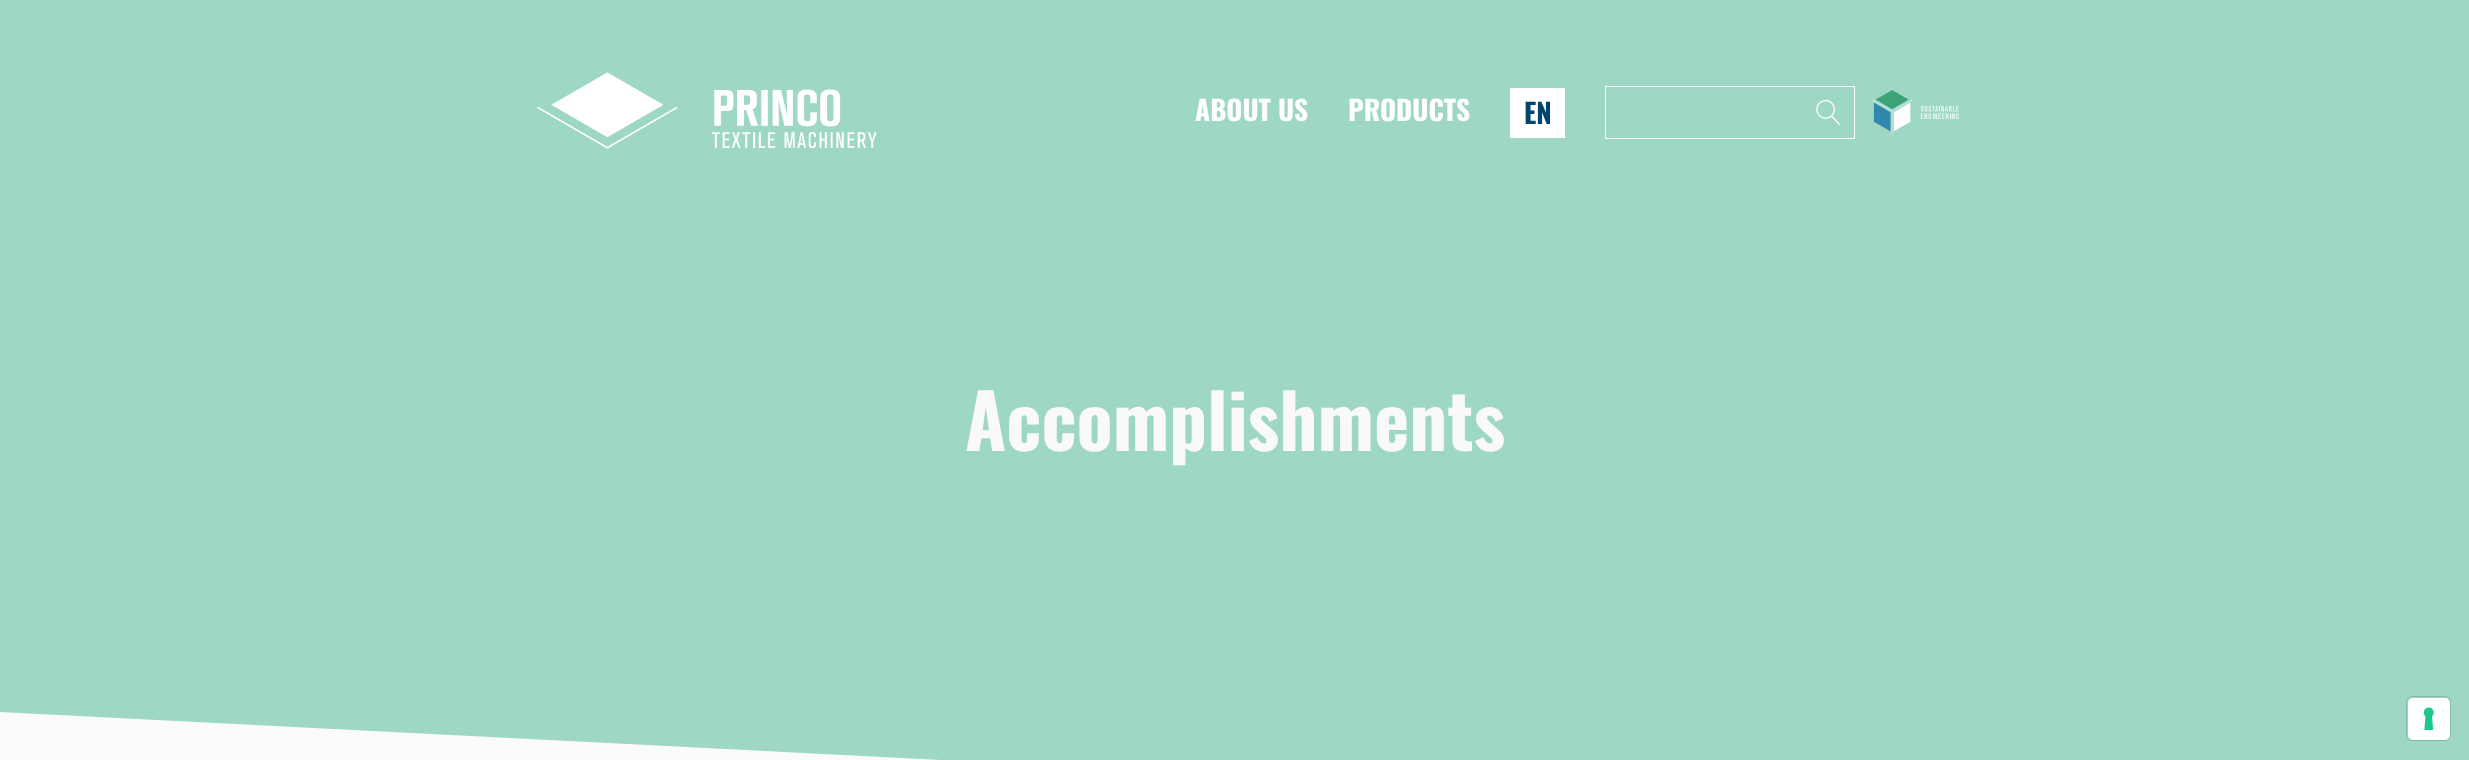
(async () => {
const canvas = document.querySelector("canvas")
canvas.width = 2469
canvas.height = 760
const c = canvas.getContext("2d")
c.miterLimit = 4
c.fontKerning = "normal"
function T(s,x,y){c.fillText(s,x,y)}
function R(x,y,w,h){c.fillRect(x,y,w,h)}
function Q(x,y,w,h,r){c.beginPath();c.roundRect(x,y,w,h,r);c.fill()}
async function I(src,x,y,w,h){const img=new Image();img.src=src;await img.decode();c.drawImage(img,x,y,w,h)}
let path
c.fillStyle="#fbfbfb"
R(0,0,2469,760)
c.fillStyle="#9ed8c5"
path = new Path2D("M0 0v712l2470 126v-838z")
c.fill(path)
await I("1.png",537,72,340,77)
c.font="bold 27.5px Oswald"
c.fillStyle="#fff"
T("ABOUT US",1195,121)
T("PRODUCTS",1348,121)
R(1510,88,55,50)
c.fillStyle="#00456d"
T("EN",1524,124)
c.strokeStyle="#fff"
c.strokeRect(1605.5,86.5,249,52)
await I("2.png",1816,100,24,25)
await I("3.png",1871,90,88,45)
c.font="bold 75px Oswald"
c.fillStyle="#f9f9fa"
T("Accomplishments",965,451)
c.beginPath()
c.roundRect(2406.5,696.5,44,44,5.5)
c.strokeStyle="#86b8a7"
c.stroke()
c.fillStyle="#fff"
Q(2408,698,42,42,5)
await I("4.png",2423,707,11,23)
})()
